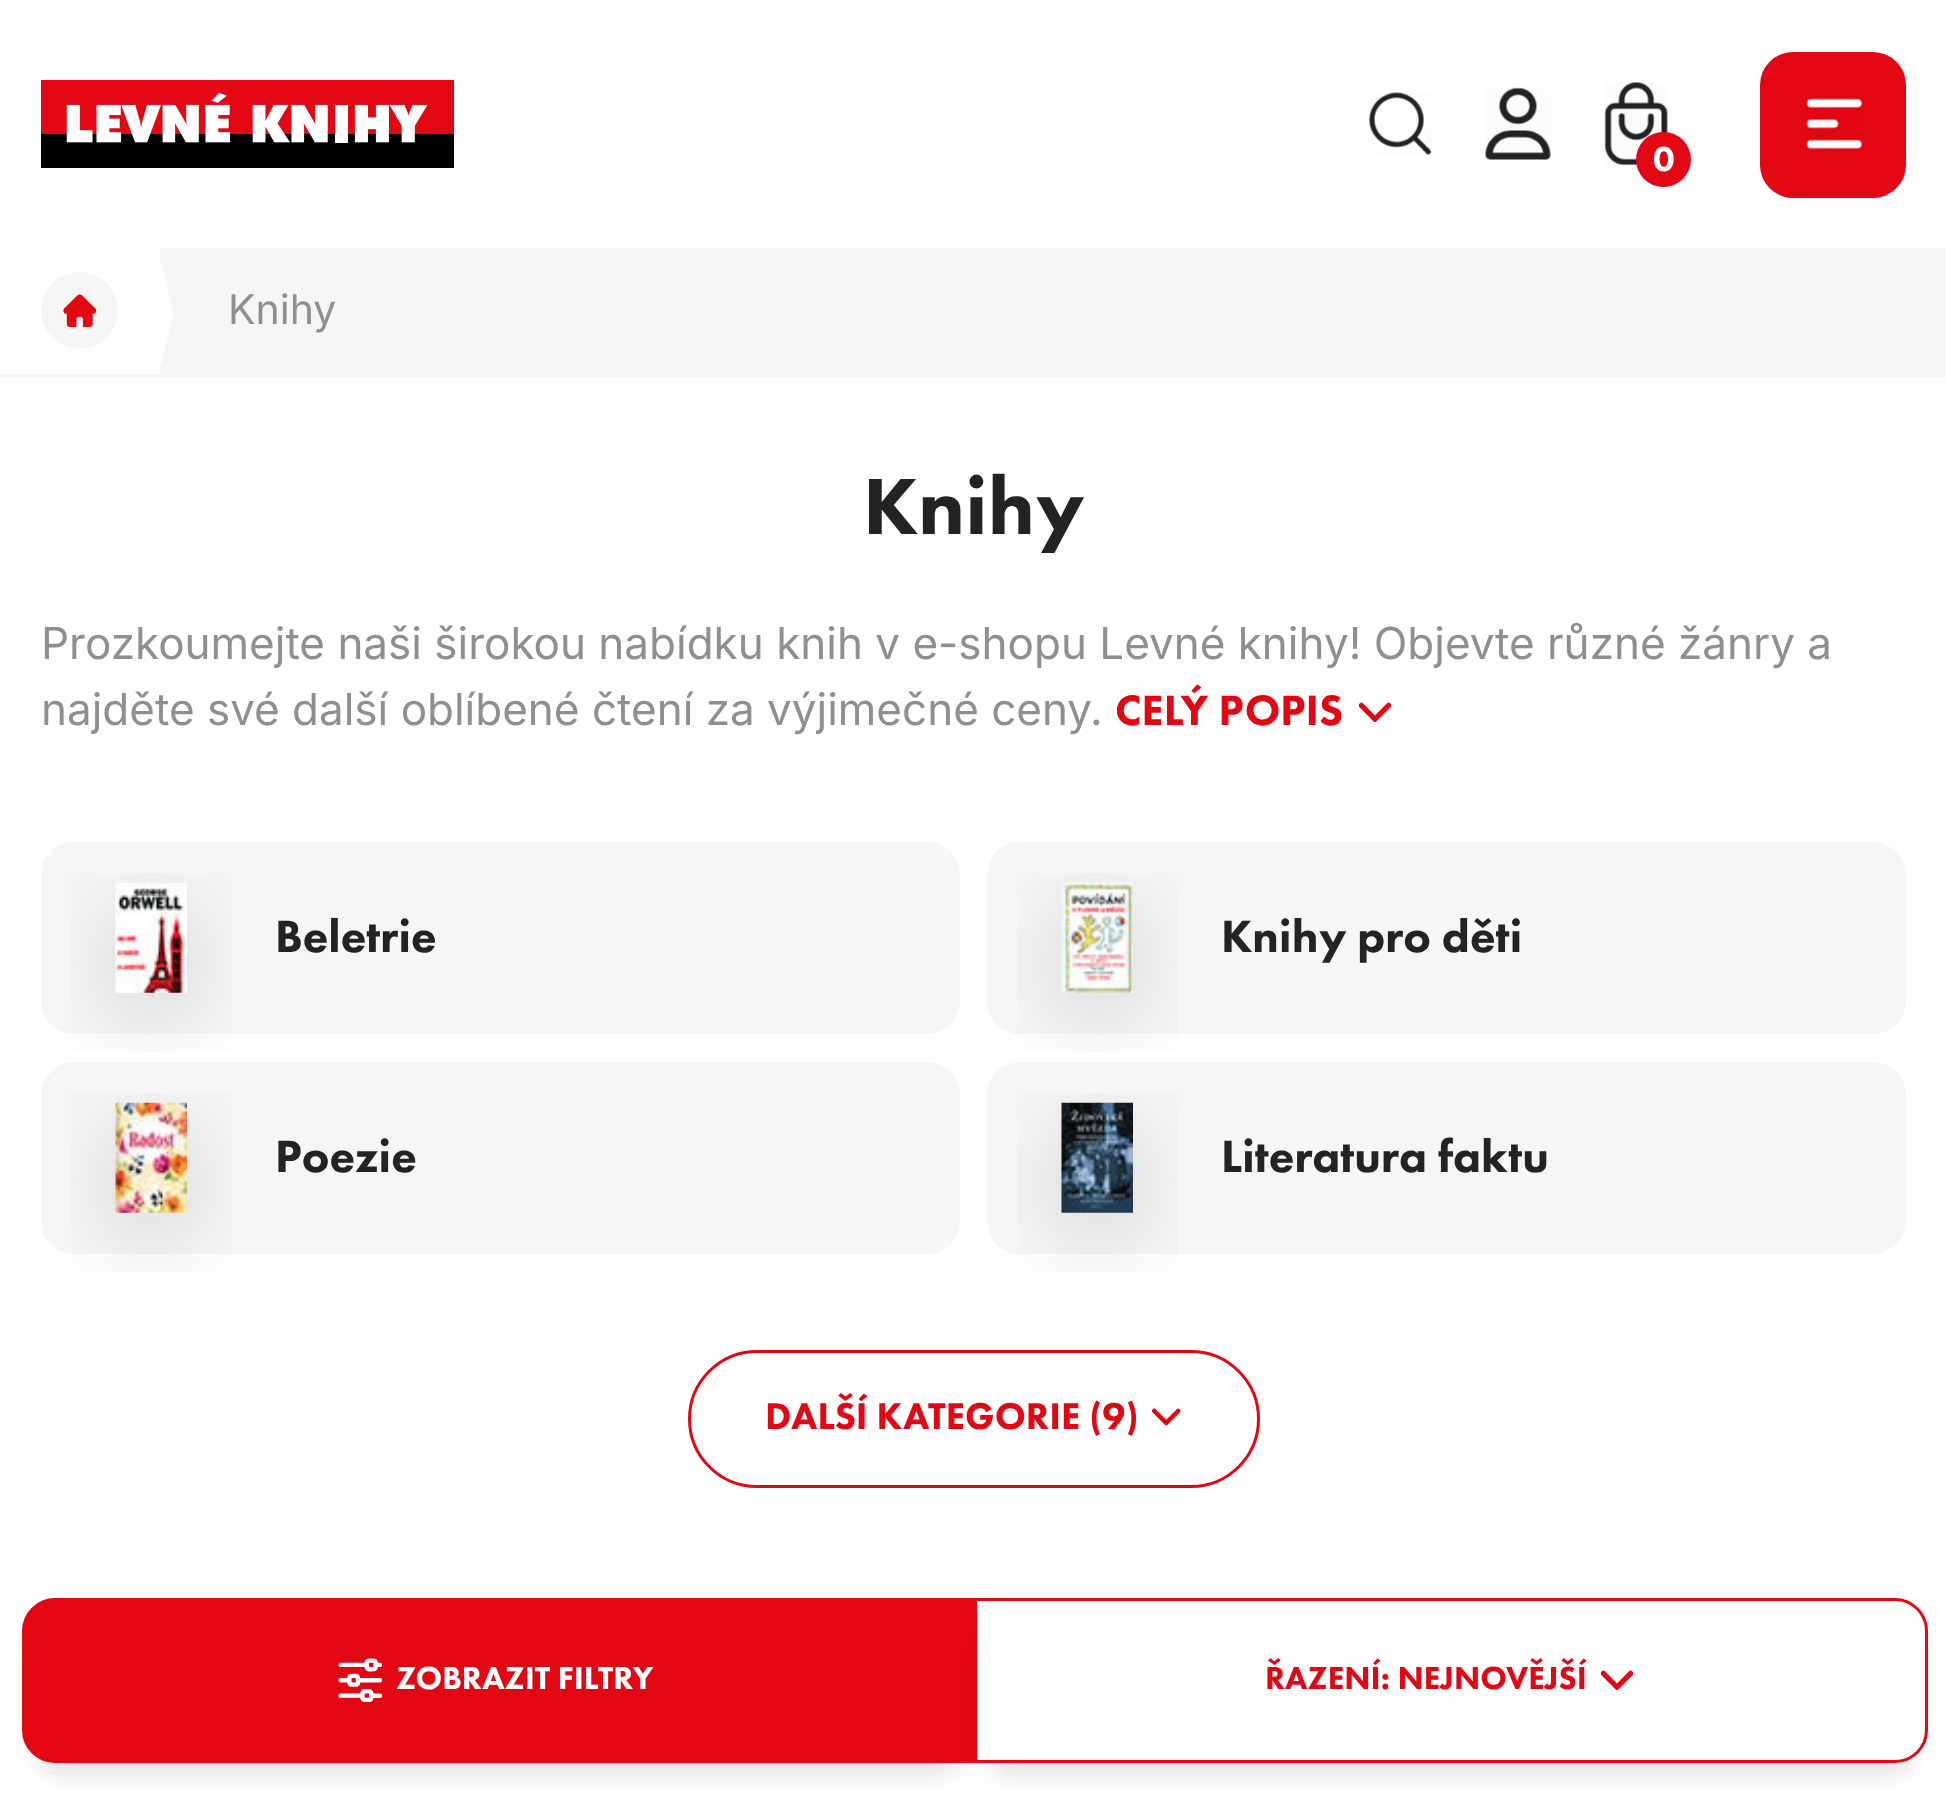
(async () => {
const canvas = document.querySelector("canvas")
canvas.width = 1946
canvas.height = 1819
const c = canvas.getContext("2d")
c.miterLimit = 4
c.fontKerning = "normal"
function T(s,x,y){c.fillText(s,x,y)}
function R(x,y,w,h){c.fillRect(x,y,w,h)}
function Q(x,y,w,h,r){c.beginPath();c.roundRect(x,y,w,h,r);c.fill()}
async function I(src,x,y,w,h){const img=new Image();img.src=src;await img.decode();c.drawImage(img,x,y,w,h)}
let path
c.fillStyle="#fff"
R(0,0,1946,1819)
await I("1.png",41,80,413,88)
await I("2.png",1369,92,63,63)
await I("3.png",1485,87,66,73)
c.fillStyle="#e30613"
Q(1760,52,146,146,33)
await I("4.png",1806,98,56,51)
await I("5.png",1604,82,64,84)
c.beginPath()
c.arc(1663.5,159.5,27.5,0,7)
c.fill()
c.font="900 36px Futura PT"
c.fillStyle="#fff"
T("0",1653,171)
c.fillStyle="#f6f6f6"
R(0,248,1946,129)
c.fillStyle="#fff"
R(0,248,160,126)
c.fillStyle="#f6f6f6"
c.beginPath()
c.arc(79.5,310.5,38.5,0,7)
c.fill()
await I("6.png",63,294,34,34)
c.save()
c.beginPath()
c.rect(0,248,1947,126)
c.clip()
c.fillStyle="#fff"
path = new Path2D("M157 380v-132l16 66z")
c.fill(path)
c.restore()
c.font="41px Inter"
c.fillStyle="#8f8f92"
T("Knihy",228,324)
c.font="900 82.5px Futura PT"
c.fillStyle="#232323"
T("Knihy",863,534)
c.font="44px Inter"
c.fillStyle="#8f8f92"
T("Prozkoumejte naši širokou nabídku knih v e-shopu Levné knihy! Objevte různé žánry a",41,659)
T("najděte své další oblíbené čtení za výjimečné ceny.",41,725)
c.font="900 44px Futura PT"
c.fillStyle="#e30613"
T("CELÝ POPIS",1115,725)
await I("7.png",1358,702,34,20)
c.fillStyle="#f6f6f6"
Q(41,842,919,192,33)
await I("8.png",71,873,161,179)
c.font="900 46.75px Futura PT"
c.fillStyle="#232323"
T("Beletrie",275,952)
c.fillStyle="#f6f6f6"
Q(987,842,919,192,33)
await I("9.png",1017,873,161,179)
c.fillStyle="#232323"
T("Knihy pro děti",1221,952)
c.fillStyle="#f6f6f6"
Q(41,1062,919,192,33)
await I("10.png",71,1093,161,179)
c.fillStyle="#232323"
T("Poezie",275,1172)
c.fillStyle="#f6f6f6"
Q(987,1062,919,192,33)
await I("11.png",1017,1093,161,179)
c.fillStyle="#232323"
T("Literatura faktu",1221,1172)
c.beginPath()
c.roundRect(689.5,1351.5,569,135,67.5)
c.strokeStyle="#e30613"
c.lineWidth=3
c.stroke()
c.font="900 38.5px Futura PT"
c.fillStyle="#e30613"
T("DALŠÍ KATEGORIE (9)",765,1429)
await I("12.png",1152,1408,29,18)
c.fillStyle="#69696933"
c.filter="blur(12.5px)"
c.beginPath()
c.roundRect(39,1642,918,132,17)
c.fill()
c.filter="none"
c.fillStyle="#e30613"
c.beginPath()
c.roundRect(23.5,1599.5,949,162,[31.5,0,0,31.5])
c.fill()
c.stroke()
await I("13.png",338,1658,44,44)
c.font="900 33px Futura PT"
c.fillStyle="#fff"
T("ZOBRAZIT FILTRY",396,1689)
c.save()
path = new Path2D("M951 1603h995v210h-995zm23-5h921c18 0 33 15 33 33v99c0 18-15 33-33 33h-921z")
c.clip(path,"evenodd")
c.fillStyle="#69696933"
c.filter="blur(12.5px)"
c.beginPath()
c.roundRect(990,1642,921,132,17)
c.fill()
c.filter="none"
c.restore()
c.beginPath()
c.roundRect(975.5,1599.5,951,162,[0,31.5,31.5,0])
c.stroke()
c.fillStyle="#e30613"
T("ŘAZENÍ: NEJNOVĚJŠÍ",1265,1689)
await I("7.png",1600,1670,34,20)
})()
